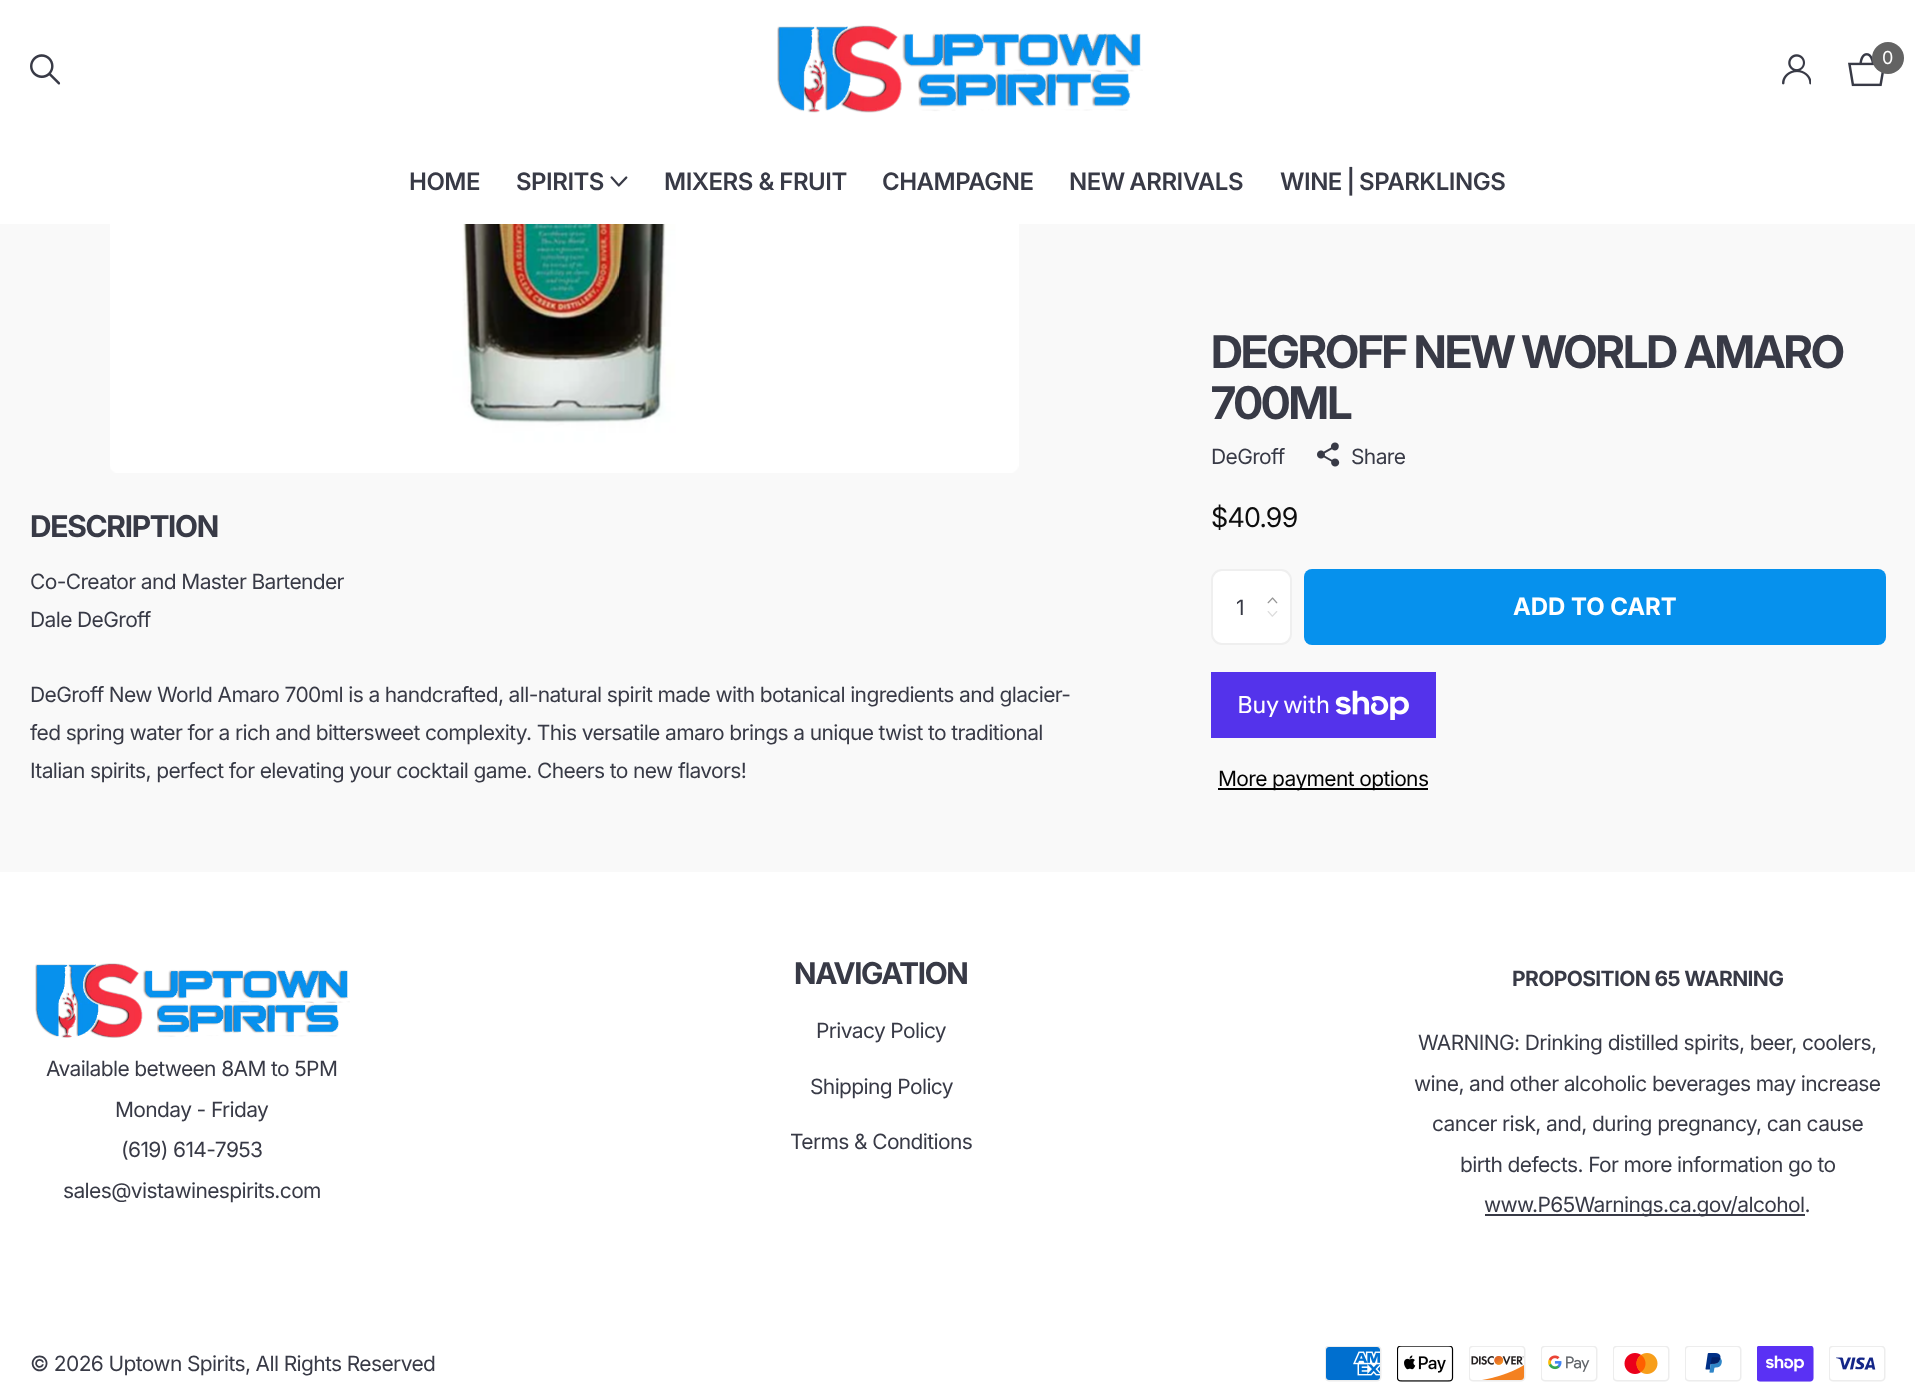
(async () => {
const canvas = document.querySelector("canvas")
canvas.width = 1915
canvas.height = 1382
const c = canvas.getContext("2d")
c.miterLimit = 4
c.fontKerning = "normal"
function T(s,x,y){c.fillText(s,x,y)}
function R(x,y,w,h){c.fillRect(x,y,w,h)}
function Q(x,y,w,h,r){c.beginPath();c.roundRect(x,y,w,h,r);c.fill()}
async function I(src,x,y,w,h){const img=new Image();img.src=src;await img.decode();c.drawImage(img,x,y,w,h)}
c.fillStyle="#f9f9f9"
R(0,0,1915,1382)
c.fillStyle="#fff"
R(0,0,1915,224)
await I("1.png",30,54,31,31)
await I("2.png",777,25,366,88)
await I("3.png",1782,54,29,31)
await I("4.png",1848,53,36,34)
c.fillStyle="#636363"
c.beginPath()
c.arc(1888,58,16,0,7)
c.fill()
c.letterSpacing="-1px"
c.font="18px Inter"
c.fillStyle="#fff"
T("0",1882,64)
c.letterSpacing="-0.5px"
c.font="600 24px Inter"
c.fillStyle="#383a46"
T("HOME",409,190)
T("SPIRITS",516,190)
await I("5.png",610,176,18,11)
T("MIXERS & FRUIT",664,190)
T("CHAMPAGNE",882,190)
c.wordSpacing="-1px"
T("NEW ARRIVALS",1069,190)
T("WINE | SPARKLINGS",1280,190)
await I("6.png",110,224,909,249)
c.letterSpacing="-1.25px"
c.wordSpacing="0px"
c.font="bold 30px Inter"
T("DESCRIPTION",30,537)
c.letterSpacing="-0.63px"
c.font="21px Inter"
T("Co-Creator and Master Bartender",30,589)
T("Dale DeGroff",30,627)
T("DeGroff New World Amaro 700ml is a handcrafted, all-natural spirit made with botanical ingredients and glacier-",30,702)
T("fed spring water for a rich and bittersweet complexity. This versatile amaro brings a unique twist to traditional",30,740)
T("Italian spirits, perfect for elevating your cocktail game. Cheers to new flavors!",30,778)
c.letterSpacing="-1.8px"
c.font="bold 45px 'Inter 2'"
T("DEGROFF NEW WORLD AMARO",1211,368)
T("700ML",1211,419)
c.letterSpacing="-0.63px"
c.font="21px Inter"
T("DeGroff",1211,464)
await I("7.png",1317,442,23,25)
T("Share",1351,464)
c.letterSpacing="-0.75px"
c.font="27px 'Inter 2'"
c.fillStyle="#0e0e0e"
T("$40.99",1211,527)
c.fillStyle="#fff"
c.beginPath()
c.roundRect(1212,570,79,74,10)
c.fill()
c.strokeStyle="#efefef"
c.lineWidth=2
c.stroke()
c.letterSpacing="-0.63px"
c.font="21px Inter"
c.fillStyle="#383a46"
T("1",1236,615)
await I("8.png",1267,597,11,7)
await I("9.png",1267,611,11,6)
c.fillStyle="#0691ed"
Q(1304,569,582,76,8)
c.letterSpacing="0px"
c.font="bold 24px 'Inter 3'"
c.fillStyle="#fff"
T("ADD TO CART",1513,615)
c.fillStyle="#5433eb"
R(1211,672,225,66)
c.letterSpacing="-0.63px"
c.font="24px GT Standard"
c.fillStyle="#fff"
T("Buy with",1237,713)
await I("10.png",1335,690,74,30)
c.fillStyle="#020202"
R(1218,788,210,2)
c.font="21px Inter"
T("More payment options",1218,786)
c.fillStyle="#fff"
R(0,872,1915,510)
await I("11.png",35,963,315,75)
c.fillStyle="#383a46"
T("Available between 8AM to 5PM",46,1076)
T("Monday - Friday",115,1117)
T("(619) 614-7953",121,1157)
T("sales@vistawinespirits.com",63,1198)
c.letterSpacing="-1.25px"
c.font="bold 30px Inter"
T("NAVIGATION",794,984)
c.letterSpacing="-0.63px"
c.font="21px Inter"
T("Privacy Policy",816,1038)
T("Shipping Policy",810,1094)
T("Terms & Conditions",790,1149)
c.font="bold 21px 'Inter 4'"
T("PROPOSITION 65 WARNING",1512,986)
c.font="21px Inter"
T("WARNING: Drinking distilled spirits, beer, coolers,",1418,1050)
T("wine, and other alcoholic beverages may increase",1414,1091)
T("cancer risk, and, during pregnancy, can cause",1432,1131)
T("birth defects. For more information go to",1460,1172)
R(1485,1214,320,2)
T("www.P65Warnings.ca.gov/alcohol.",1484,1212)
T("© 2026 Uptown Spirits, All Rights Reserved",30,1371)
await I("12.png",1325,1346,57,36)
await I("13.png",1397,1346,57,36)
await I("14.png",1469,1346,57,36)
await I("15.png",1541,1346,57,36)
await I("16.png",1613,1346,57,36)
await I("17.png",1685,1346,57,36)
await I("18.png",1757,1346,57,36)
await I("19.png",1829,1346,57,36)
})()
